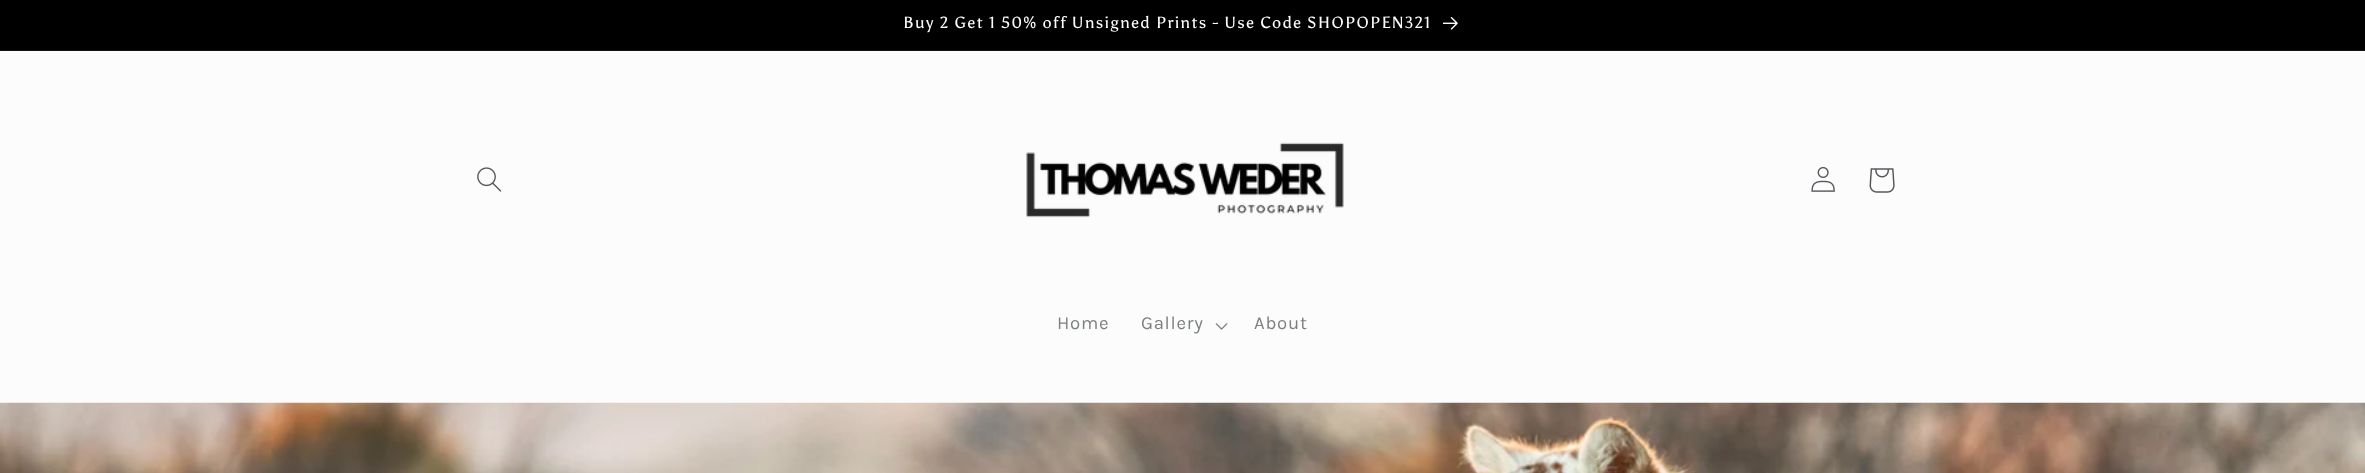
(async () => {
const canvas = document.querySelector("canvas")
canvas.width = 2365
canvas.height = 473
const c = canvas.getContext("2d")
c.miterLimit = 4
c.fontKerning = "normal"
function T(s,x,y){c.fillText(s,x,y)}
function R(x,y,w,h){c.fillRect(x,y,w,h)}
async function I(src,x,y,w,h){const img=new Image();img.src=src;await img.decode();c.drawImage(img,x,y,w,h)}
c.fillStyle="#fcfcfc"
R(0,0,2365,473)
c.fillStyle="#000"
R(0,0,2365,50)
c.fillStyle="#141414"
R(0,50,2365,1)
c.letterSpacing="1.3px"
c.font="16.25px Asul"
c.fillStyle="#fcfcfc"
T("Buy 2 Get 1 50% off Unsigned Prints - Use Code SHOPOPEN321",903,28)
await I("1.png",1443,17,15,13)
await I("2.png",477,167,25,25)
await I("3.png",1026,142,318,76)
await I("4.png",1811,166,24,26)
await I("5.png",1869,168,26,25)
c.letterSpacing="0.75px"
c.font="18.5px Karla"
c.fillStyle="#7d8083"
T("Home",1057,329)
T("Gallery",1141,329)
await I("6.png",1215,323,13,7)
T("About",1254,329)
await I("7.png",0,402,2365,71)
})()
